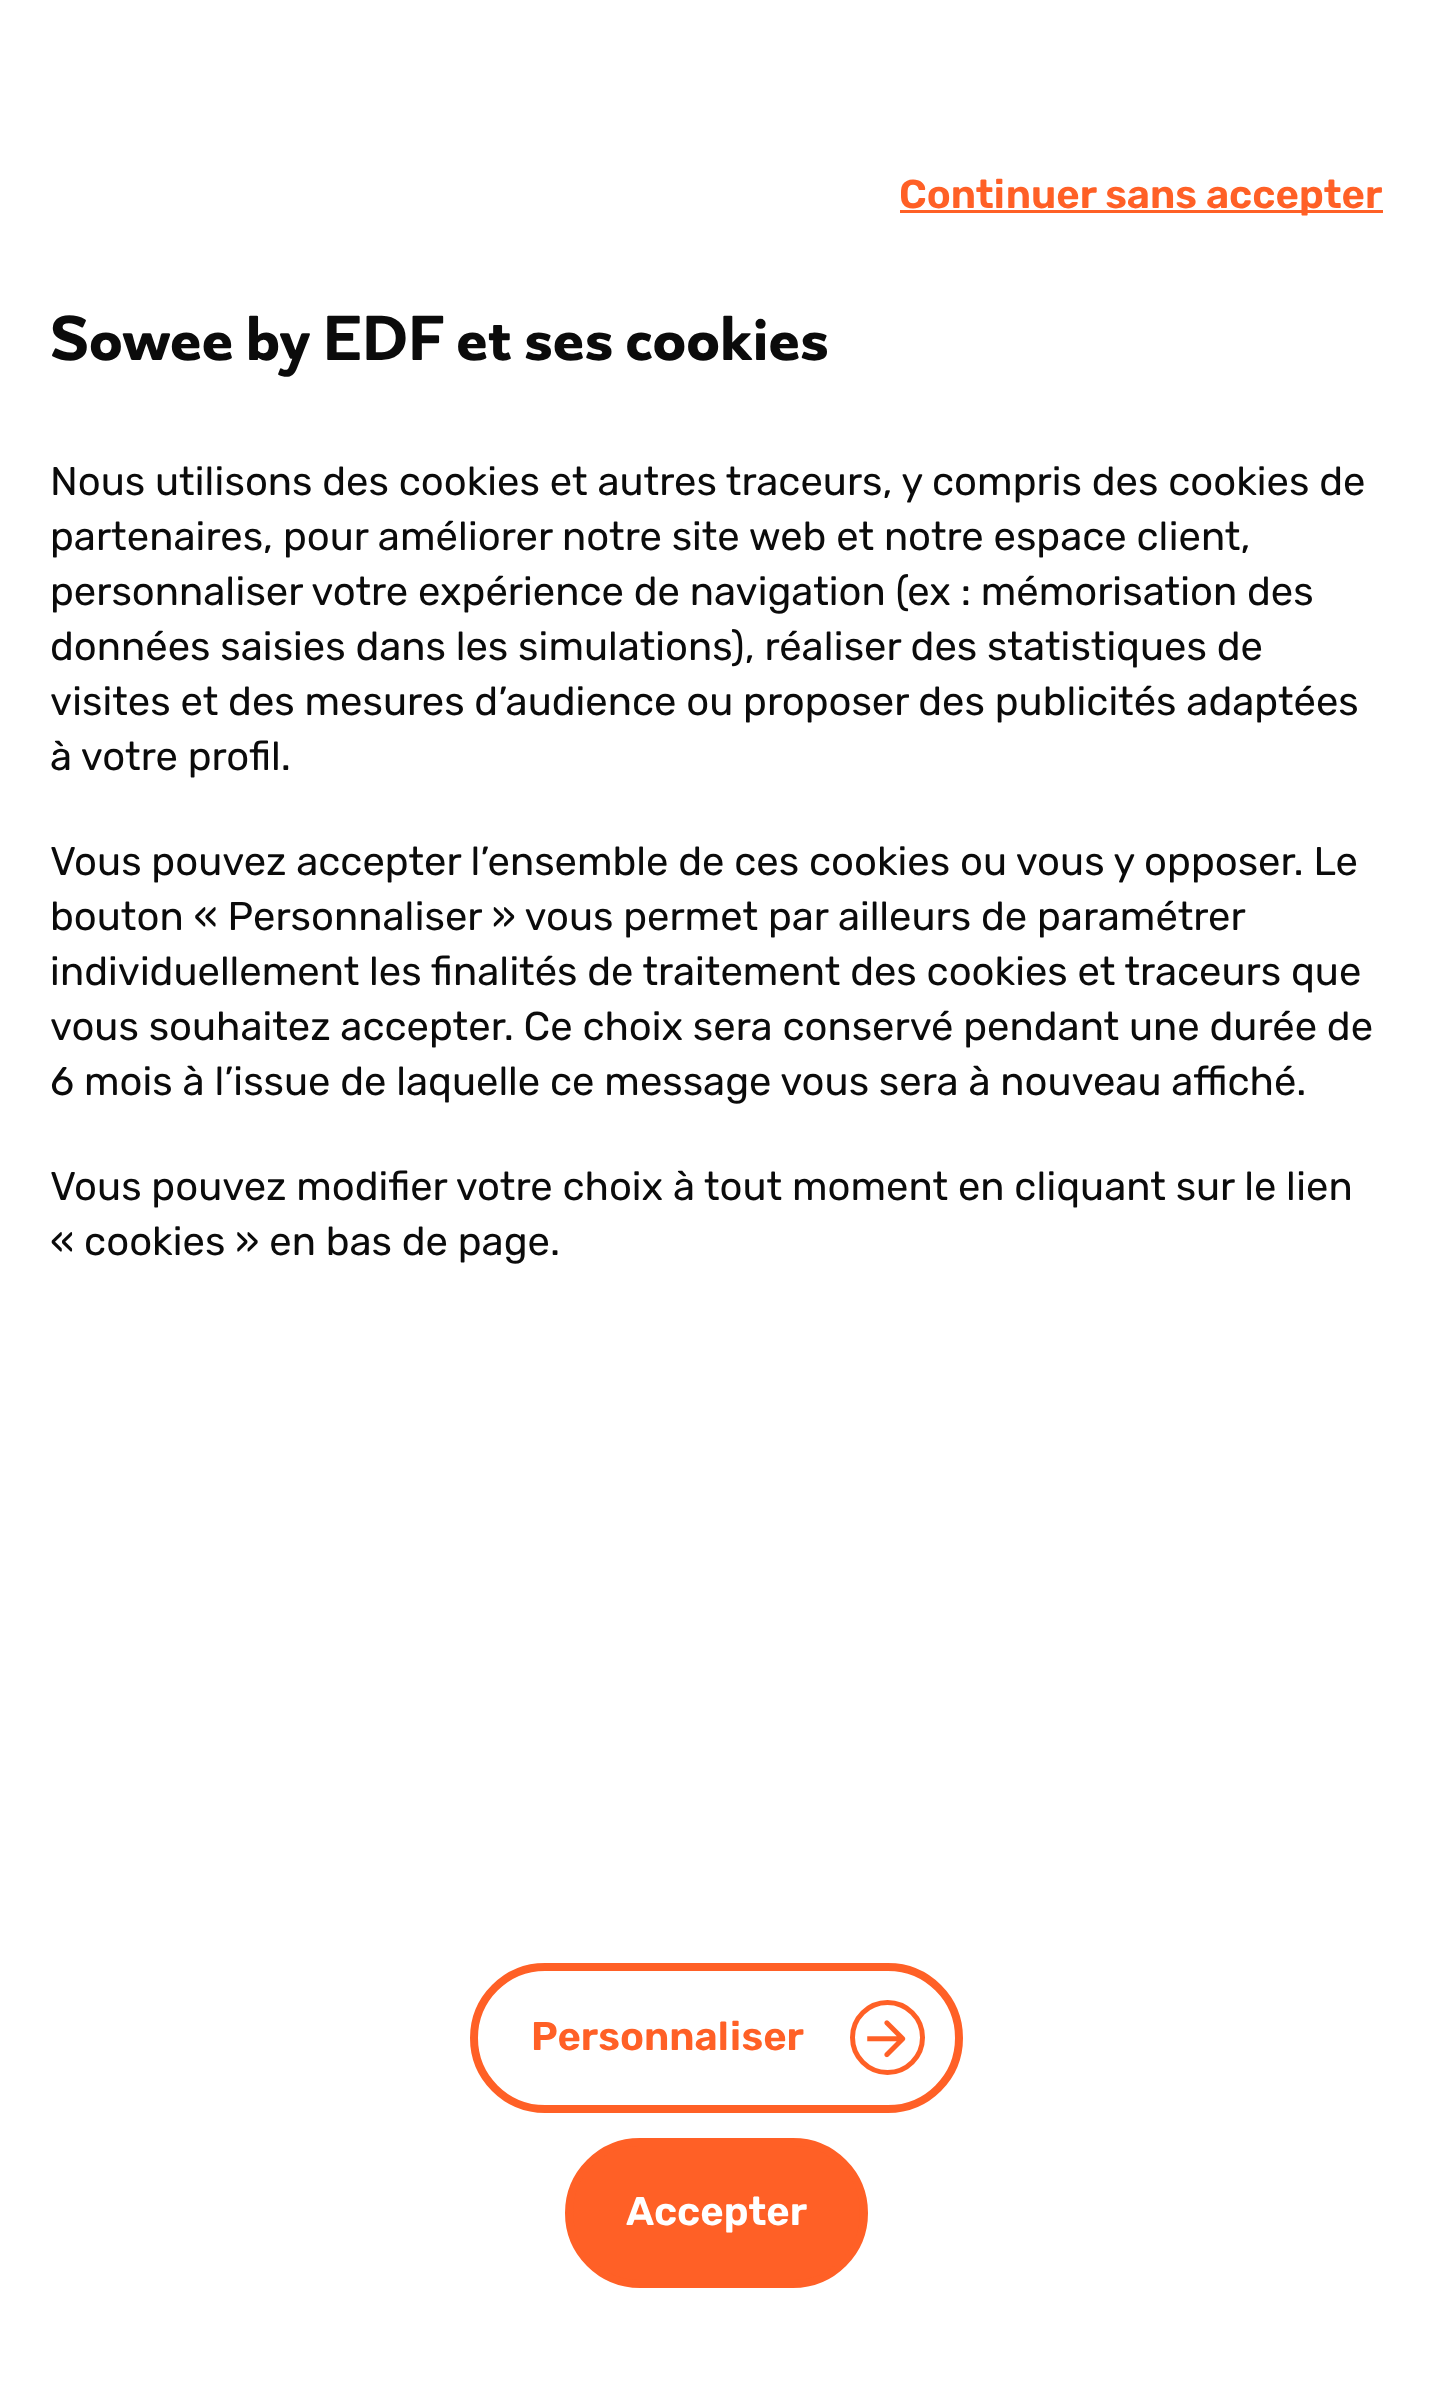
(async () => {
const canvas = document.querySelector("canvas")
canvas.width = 1432
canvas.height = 2387
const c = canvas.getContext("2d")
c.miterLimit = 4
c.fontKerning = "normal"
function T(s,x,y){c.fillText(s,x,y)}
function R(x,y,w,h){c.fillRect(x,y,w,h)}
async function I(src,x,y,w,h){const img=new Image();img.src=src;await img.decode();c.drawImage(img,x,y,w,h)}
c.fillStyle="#fff"
R(0,0,1432,2387)
c.fillStyle="#ff6026"
R(900,210,483,3)
c.font="600 40px Rubik"
T("Continuer sans accepter",899,208)
c.font="bold 65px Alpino"
c.fillStyle="#0b0b0b"
T("Sowee by EDF et ses cookies",50,360)
c.font="40px Rubik"
T("Nous utilisons des cookies et autres traceurs, y compris des cookies de",50,495)
T("partenaires, pour améliorer notre site web et notre espace client,",50,550)
T("personnaliser votre expérience de navigation (ex : mémorisation des",50,605)
T("données saisies dans les simulations), réaliser des statistiques de",50,660)
T("visites et des mesures d’audience ou proposer des publicités adaptées",50,715)
T("à votre profil.",50,770)
T("Vous pouvez accepter l’ensemble de ces cookies ou vous y opposer. Le",50,875)
T("bouton « Personnaliser » vous permet par ailleurs de paramétrer",50,930)
T("individuellement les finalités de traitement des cookies et traceurs que",50,985)
T("vous souhaitez accepter. Ce choix sera conservé pendant une durée de",50,1040)
T("6 mois à l’issue de laquelle ce message vous sera à nouveau affiché.",50,1095)
T("Vous pouvez modifier votre choix à tout moment en cliquant sur le lien",50,1200)
T("« cookies » en bas de page.",50,1255)
c.beginPath()
c.roundRect(474,1967,485,142,71)
c.strokeStyle="#ff6026"
c.lineWidth=8
c.stroke()
c.font="600 40px Rubik"
c.fillStyle="#ff6026"
T("Personnaliser",531,2050)
await I("1.png",867,2020,39,38)
c.beginPath()
c.arc(887.5,2037.5,35,0,7)
c.lineWidth=5
c.stroke()
c.beginPath()
c.roundRect(569,2142,295,142,71)
c.fill()
c.lineWidth=8
c.stroke()
c.fillStyle="#fff"
T("Accepter",626,2225)
})()
